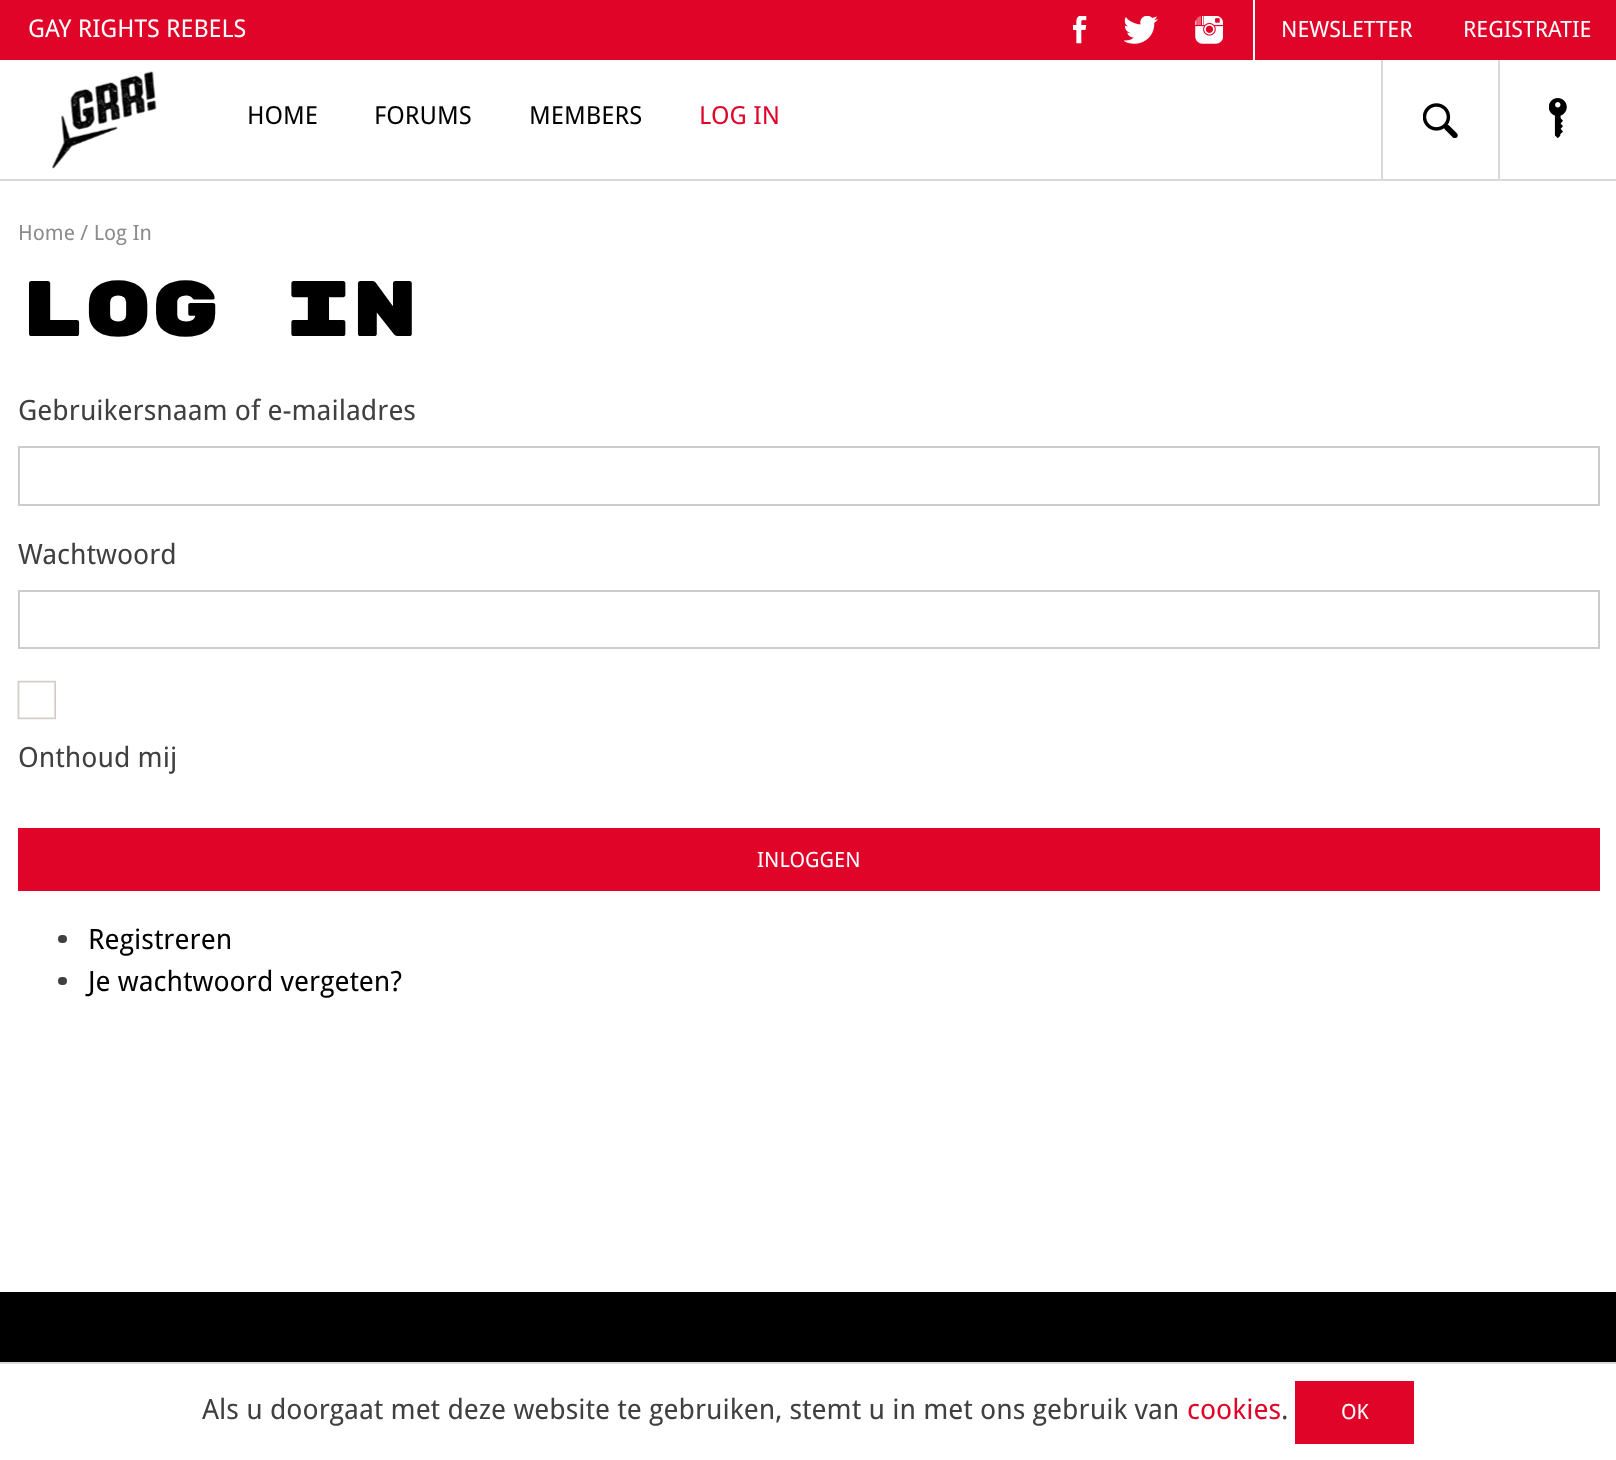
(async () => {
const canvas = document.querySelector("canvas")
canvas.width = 1616
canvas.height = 1460
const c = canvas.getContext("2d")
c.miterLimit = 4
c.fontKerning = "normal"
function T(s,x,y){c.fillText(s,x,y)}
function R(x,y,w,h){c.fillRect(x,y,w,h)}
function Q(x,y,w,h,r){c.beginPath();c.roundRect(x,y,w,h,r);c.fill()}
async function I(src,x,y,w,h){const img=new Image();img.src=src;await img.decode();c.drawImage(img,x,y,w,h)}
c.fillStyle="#fff"
R(0,0,1616,1460)
c.fillStyle="#e00429"
R(0,0,1616,60)
c.font="24.5px Droid Sans"
c.fillStyle="#fff"
T("GAY RIGHTS REBELS",28,37)
R(1253,0,2,60)
await I("1.png",1073,16,14,28)
await I("2.png",1124,16,34,28)
await I("3.png",1195,16,28,28)
c.font="22.5px Droid Sans"
T("NEWSLETTER",1281,37)
T("REGISTRATIE",1463,37)
c.fillStyle="#d9d9d9"
R(0,179,1616,2)
await I("4.png",52,71,105,98)
c.font="25px Droid Sans"
c.fillStyle="#000"
T("HOME",247,124)
T("FORUMS",374,124)
T("MEMBERS",529,124)
c.fillStyle="#e00429"
T("LOG IN",699,124)
c.fillStyle="#d9d9d9"
R(1381,60,2,119)
await I("5.png",1423,103,35,35)
R(1498,60,2,119)
await I("6.png",1549,98,18,40)
c.font="21px Droid Sans"
c.fillStyle="#8c8c8c"
T("Home / Log In",18,240)
c.font="78.5px Rubik Mono One"
c.fillStyle="#000"
T("Log In",18,336)
c.font="28px Droid Sans"
c.fillStyle="#404040"
T("Gebruikersnaam of e-mailadres",18,420)
c.strokeStyle="#ccc"
c.lineWidth=2
c.strokeRect(19,447,1580,58)
T("Wachtwoord",18,564)
c.strokeRect(19,591,1580,57)
await I("7.png",17,680,39,40)
T("Onthoud mij",18,767)
c.fillStyle="#e00429"
R(18,828,1582,63)
c.font="21px Droid Sans"
c.fillStyle="#fff"
T("INLOGGEN",757,867)
c.fillStyle="#404040"
Q(58,935,9,8,4)
c.font="28px Droid Sans"
c.fillStyle="#000"
T("Registreren",88,949)
c.fillStyle="#404040"
Q(58,977,9,8,4)
c.fillStyle="#000"
T("Je wachtwoord vergeten?",88,991)
R(0,1292,1616,70)
c.fillStyle="#d9d9d9"
R(0,1362,1616,2)
c.fillStyle="#404040"
T("Als u doorgaat met deze website te gebruiken, stemt u in met ons gebruik van",202,1419)
c.fillStyle="#e00429"
T("cookies",1187,1419)
c.fillStyle="#404040"
T(".",1281,1419)
c.fillStyle="#e00429"
R(1295,1381,119,63)
c.font="21px Droid Sans"
c.fillStyle="#fff"
T("OK",1341,1419)
})()
